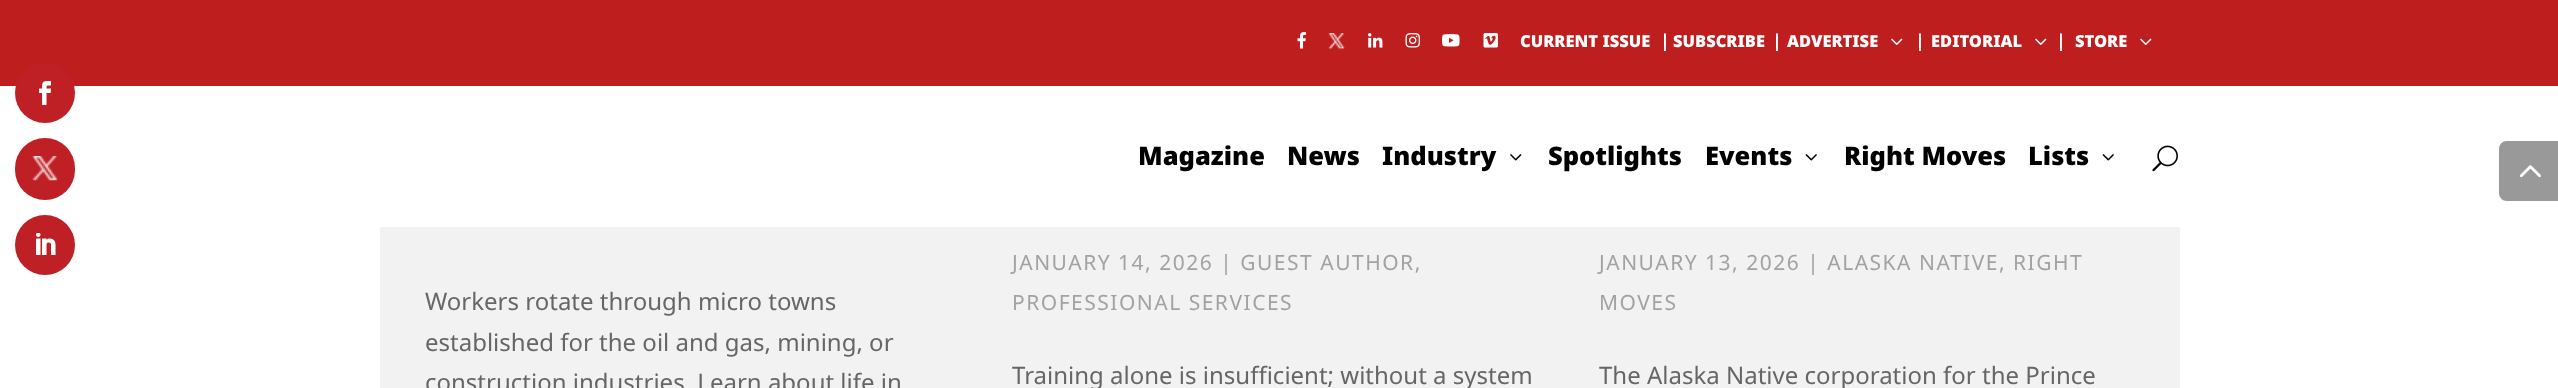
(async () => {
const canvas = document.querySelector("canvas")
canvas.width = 2558
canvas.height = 388
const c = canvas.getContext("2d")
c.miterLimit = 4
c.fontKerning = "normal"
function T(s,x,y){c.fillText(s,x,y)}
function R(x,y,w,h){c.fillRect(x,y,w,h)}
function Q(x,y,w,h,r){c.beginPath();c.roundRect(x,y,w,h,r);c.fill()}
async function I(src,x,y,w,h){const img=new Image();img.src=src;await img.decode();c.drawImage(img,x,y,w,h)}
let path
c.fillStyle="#fff"
R(0,0,2558,388)
c.fillStyle="#bf1e1e"
R(0,0,2558,86)
c.fillStyle="#be2025"
c.beginPath()
c.arc(45,93,30,0,7)
c.fill()
await I("1.png",39,81,12,24)
Q(15,138,60,62,30)
await I("2.png",32,156,26,25)
c.beginPath()
c.arc(45,245,30,0,7)
c.fill()
await I("3.png",36,233,20,22)
await I("4.png",1297,32,9,17)
await I("5.png",1328,33,17,17)
await I("6.png",1368,33,15,15)
await I("7.png",1405,33,15,15)
await I("8.png",1442,34,18,13)
await I("9.png",1483,33,15,15)
c.font="900 16.5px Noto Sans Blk"
c.fillStyle="#fff"
T("CURRENT ISSUE",1520,47)
c.font="bold 18px Noto Sans"
T("|",1660,47)
c.font="900 16.5px Noto Sans Blk"
T("SUBSCRIBE",1673,47)
c.font="bold 18px Noto Sans"
T("|",1772,47)
c.font="900 16.5px Noto Sans Blk"
T("ADVERTISE",1787,47)
await I("10.png",1891,38,12,7)
c.font="bold 18px Noto Sans"
T("|",1915,47)
c.font="900 16.5px Noto Sans Blk"
T("EDITORIAL",1931,47)
await I("10.png",2035,38,12,7)
c.font="bold 18px Noto Sans"
T("|",2056,47)
c.font="900 16.5px Noto Sans Blk"
T("STORE",2075,47)
await I("10.png",2140,38,12,7)
c.fillStyle="#f2f2f2"
R(380,86,1800,302)
c.fillStyle="#fffffffc"
R(380,86,1800,141)
c.font="900 25.5px Noto Sans Blk"
c.fillStyle="#000"
T("Magazine",1138,165)
T("News",1287,165)
T("Industry",1382,165)
await I("11.png",1510,154,12,7)
T("Spotlights",1548,165)
T("Events",1705,165)
await I("12.png",1805,154,12,7)
T("Right Moves",1844,165)
T("Lists",2028,165)
await I("12.png",2102,154,12,7)
await I("13.png",2152,145,26,27)
c.fillStyle="#999"
path = new Path2D("M2507 141h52v60h-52c-4.5 0-8-3.5-8-8v-44c0-4.5 3.5-8 8-8z")
c.fill(path)
await I("14.png",2519,165,22,13)
c.font="24px Noto Sans"
c.fillStyle="#666"
T("Workers rotate through micro towns",425,310)
T("established for the oil and gas, mining, or",425,351)
T("construction industries. Learn about life in",425,391)
c.letterSpacing="1.5px"
c.font="21px Noto Sans"
c.fillStyle="#a2a2a2"
T("JANUARY 14, 2026 | GUEST AUTHOR,",1012,270)
T("PROFESSIONAL SERVICES",1012,310)
c.letterSpacing="0px"
c.font="24px Noto Sans"
c.fillStyle="#666"
T("Training alone is insufficient; without a system",1012,384)
c.letterSpacing="1.5px"
c.font="21px Noto Sans"
c.fillStyle="#a2a2a2"
T("JANUARY 13, 2026 | ALASKA NATIVE, RIGHT",1599,270)
T("MOVES",1599,310)
c.letterSpacing="0px"
c.font="24px Noto Sans"
c.fillStyle="#666"
T("The Alaska Native corporation for the Prince",1599,384)
})()
